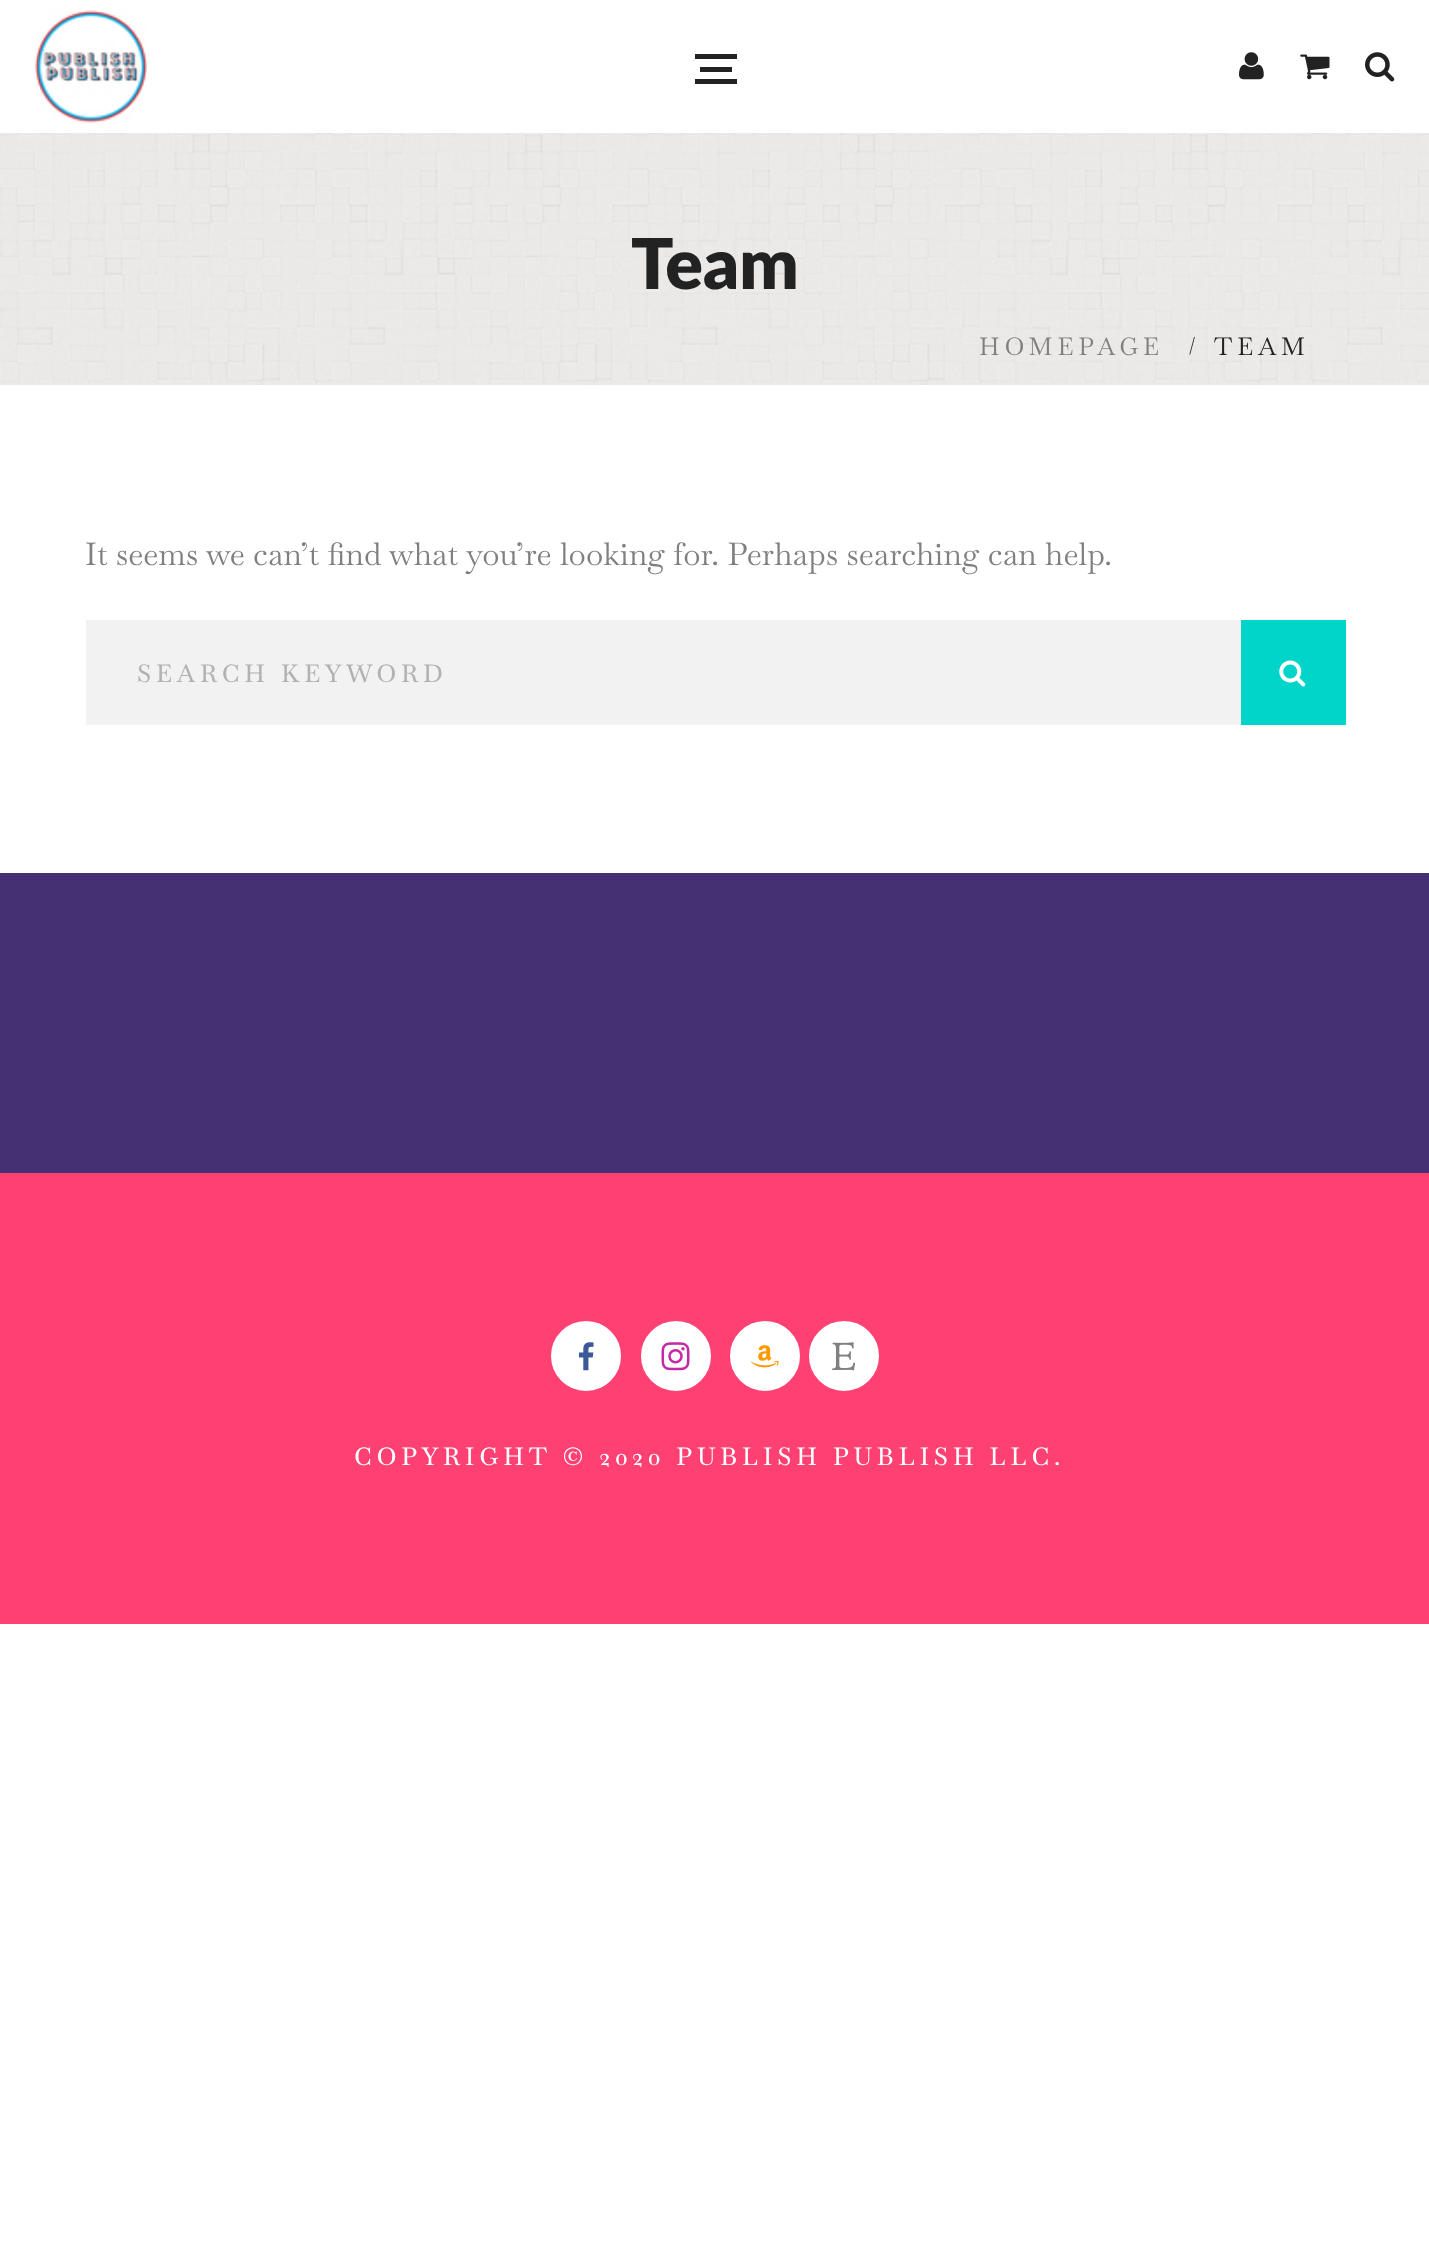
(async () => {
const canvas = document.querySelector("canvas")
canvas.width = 1429
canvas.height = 2258
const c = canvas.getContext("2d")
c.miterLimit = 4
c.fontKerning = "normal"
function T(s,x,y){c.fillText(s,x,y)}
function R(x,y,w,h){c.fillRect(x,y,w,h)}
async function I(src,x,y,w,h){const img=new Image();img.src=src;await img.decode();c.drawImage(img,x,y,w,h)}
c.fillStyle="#fff"
R(0,0,1429,2258)
await I("1.png",35,10,112,113)
c.fillStyle="#222"
R(695,54,42,5)
R(695,79,42,5)
R(700,67,32,5)
await I("2.png",1239,52,25,28)
await I("3.png",1300,54,30,26)
await I("4.png",1365,52,30,30)
c.fillStyle="#edecea"
R(0,133,1429,252)
await I("5.png",0,133,1429,252)
c.font="800 70px Lato"
c.fillStyle="#222"
T("Team",631,289)
c.letterSpacing="4.9px"
c.font="24.5px Baskervville"
c.fillStyle="#808080"
T("HOMEPAGE",979,355)
c.font="18px Baskervville"
c.fillStyle="#222"
T("/",1189,352)
c.font="24.5px Baskervville"
T("TEAM",1214,355)
c.letterSpacing="0px"
c.font="31.5px Baskervville"
c.fillStyle="#808080"
T("It seems we can’t find what you’re looking for. Perhaps searching can help.",85,565)
c.fillStyle="#f2f2f2"
R(86,620,1155,105)
c.letterSpacing="4.9px"
c.font="500 24.5px Baskervville"
c.fillStyle="#b2b2b2"
T("SEARCH KEYWORD",137,682)
c.fillStyle="#01d5c9"
R(1241,620,105,105)
await I("6.png",1279,660,27,27)
c.fillStyle="#453074"
R(0,873,1429,300)
c.fillStyle="#ff4073"
R(0,1173,1429,451)
c.fillStyle="#fff"
c.beginPath()
c.arc(586,1356,33,0,7)
c.fill()
c.strokeStyle="#fff"
c.lineWidth=4
c.stroke()
await I("7.png",578,1342,16,29)
c.beginPath()
c.arc(676,1356,33,0,7)
c.fill()
c.stroke()
await I("8.png",661,1342,29,29)
c.beginPath()
c.arc(765,1356,33,0,7)
c.fill()
c.stroke()
await I("9.png",750,1345,29,23)
c.beginPath()
c.arc(844,1356,33,0,7)
c.fill()
c.stroke()
await I("10.png",831,1342,24,29)
T("COPYRIGHT © 2020 PUBLISH PUBLISH LLC.",354,1465)
})()
